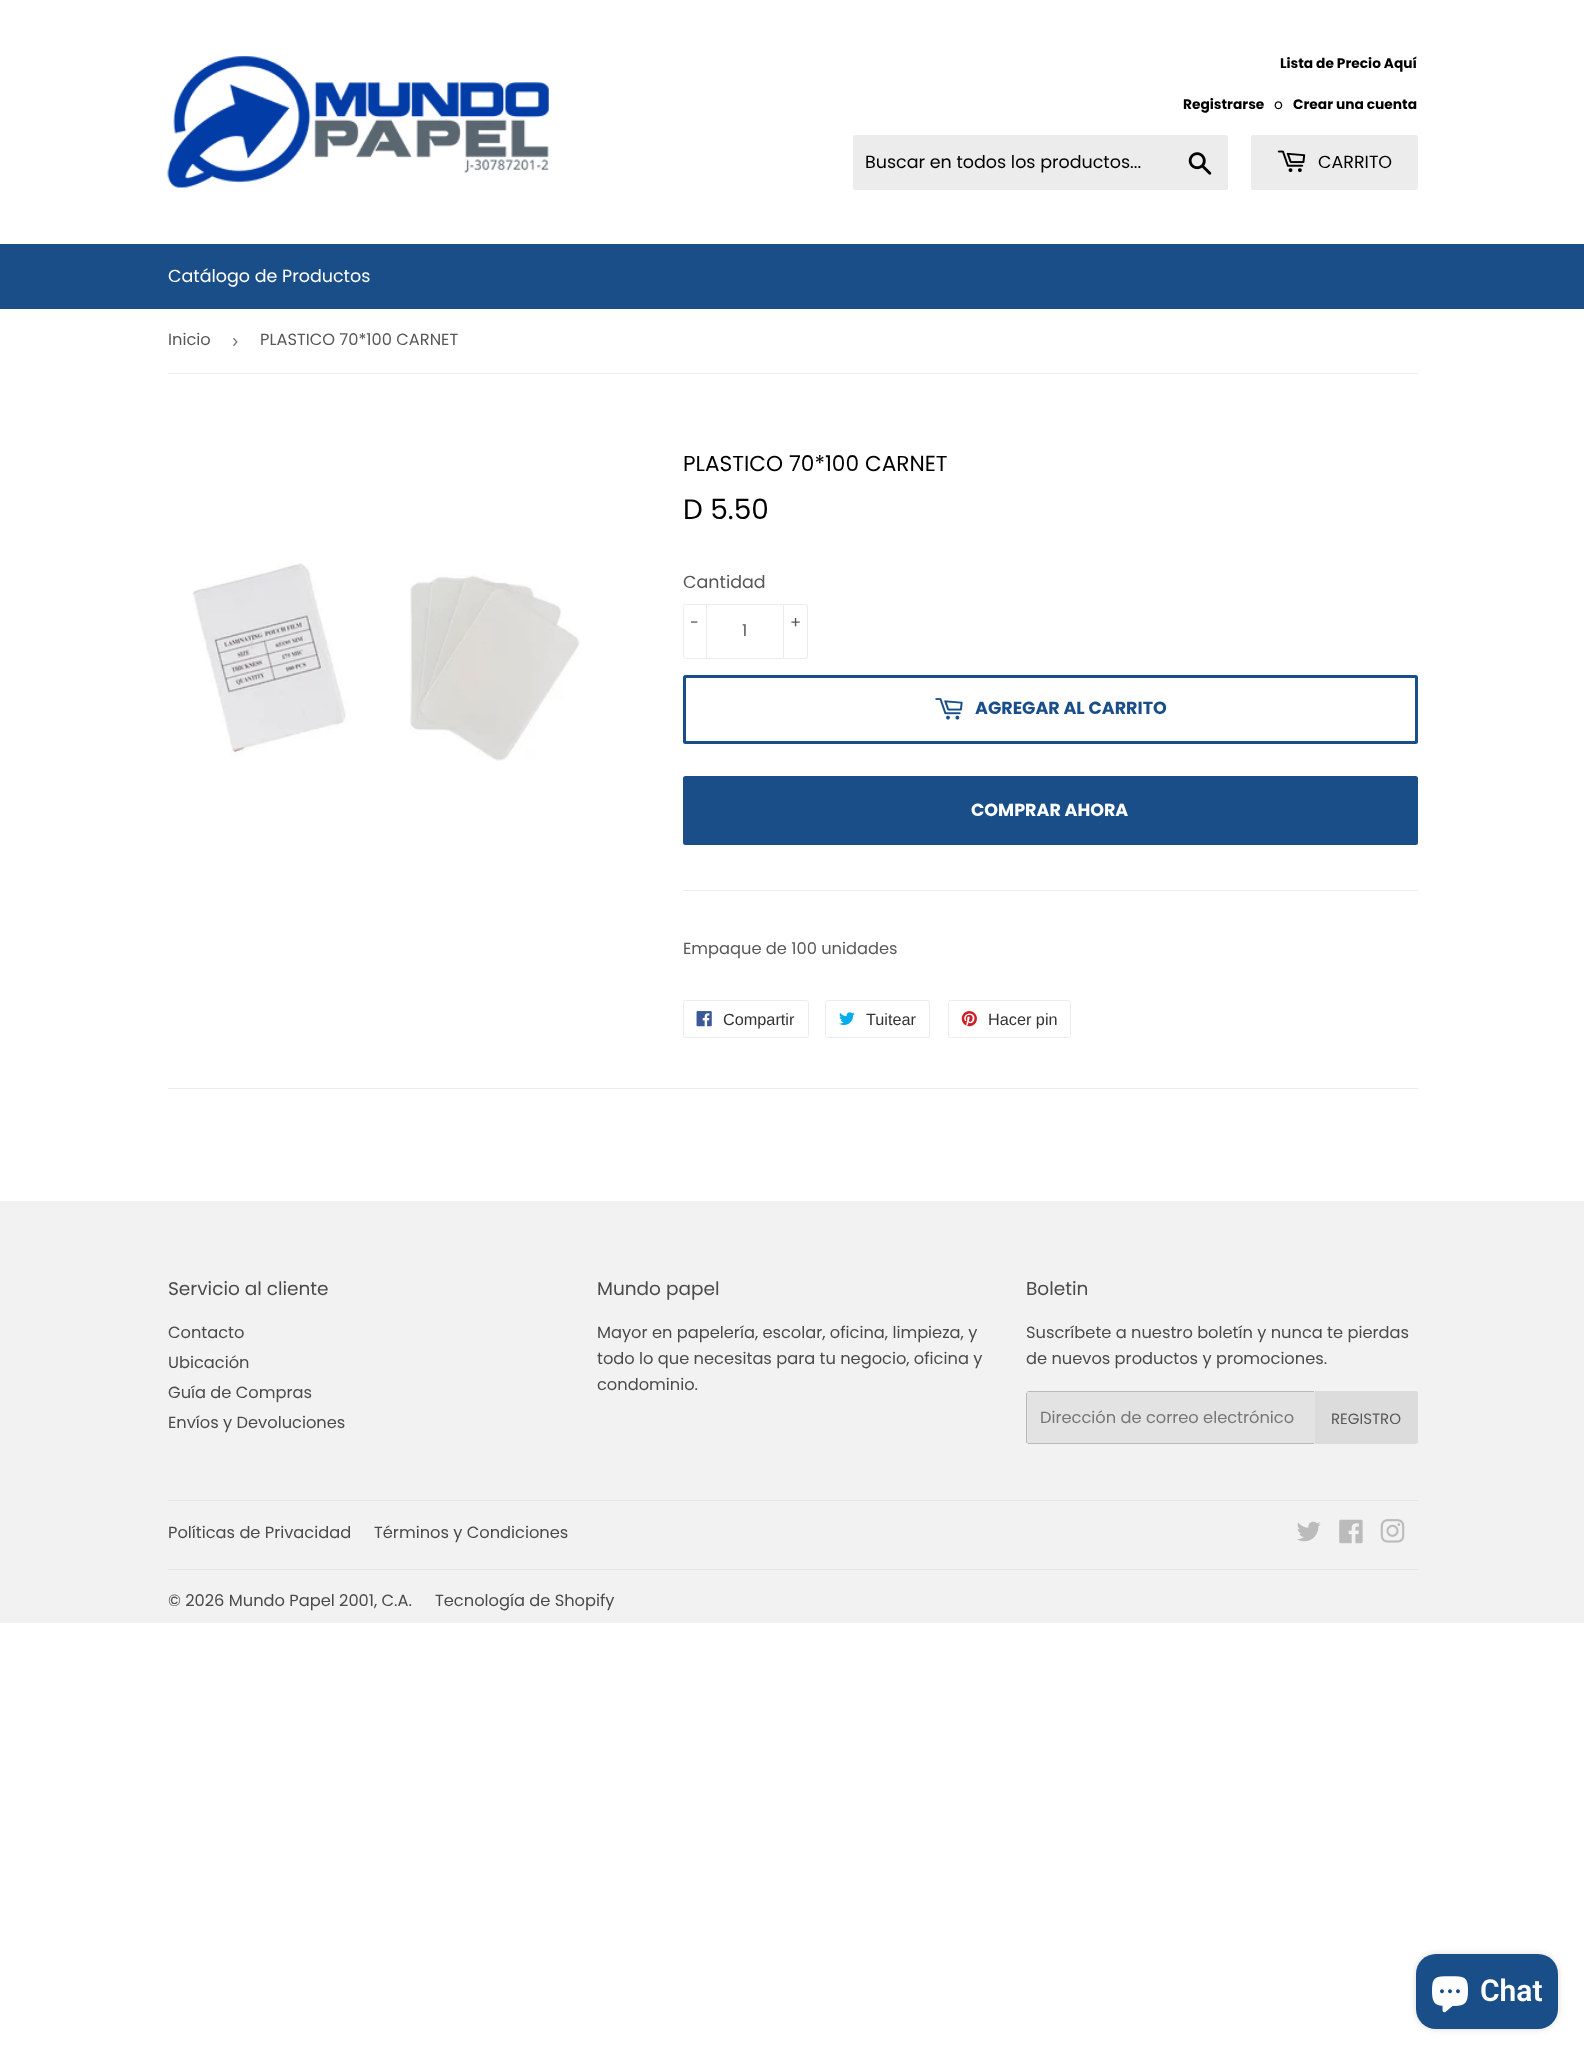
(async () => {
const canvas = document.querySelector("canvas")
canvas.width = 1584
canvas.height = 2055
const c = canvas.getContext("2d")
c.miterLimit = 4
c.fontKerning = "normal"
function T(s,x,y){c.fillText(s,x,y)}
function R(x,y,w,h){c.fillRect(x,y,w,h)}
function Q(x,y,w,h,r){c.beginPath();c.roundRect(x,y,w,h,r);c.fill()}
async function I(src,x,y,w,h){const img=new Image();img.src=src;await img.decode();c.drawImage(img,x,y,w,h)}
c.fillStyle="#fff"
R(0,0,1584,2055)
await I("1.png",167,56,382,132)
c.font="bold 13.75px Poppins"
c.fillStyle="#000"
T("Lista de Precio Aquí",1280,68)
T("Registrarse",1183,109)
c.font="13.75px Poppins"
T("o",1274,109)
c.font="bold 13.75px Poppins"
T("Crear una cuenta",1293,109)
c.fillStyle="#ececec"
Q(853,135,375,55,2.5)
c.font="17.5px Poppins"
c.fillStyle="#000"
T("Buscar en todos los productos...",865,168)
await I("2.png",1188,152,24,23)
c.fillStyle="#ececec"
Q(1251,135,167,55,2.5)
await I("3.png",1277,150,29,23)
c.fillStyle="#000"
T("CARRITO",1318,168)
c.fillStyle="#194e89"
R(0,244,1584,65)
c.fillStyle="#fff"
T("Catálogo de Productos",168,282)
c.fillStyle="#ececec"
R(168,373,1250,1)
c.font="16.25px Poppins"
c.fillStyle="#585858"
T("Inicio",168,345)
c.font="19px Liberation Sans"
c.fillStyle="#767676"
T("›",232,347)
c.font="16.25px Poppins"
c.fillStyle="#585858"
T("PLASTICO 70*100 CARNET",260,345)
await I("4.png",192,563,388,198)
c.font="21.7px Poppins"
c.fillStyle="#000"
T("PLASTICO 70*100 CARNET",683,471)
c.font="28px Poppins"
T("D 5.50",683,519)
c.font="17.5px Poppins"
c.fillStyle="#585858"
T("Cantidad",683,588)
c.beginPath()
c.roundRect(683.5,604.5,124,54,2)
c.strokeStyle="#ececec"
c.stroke()
c.fillStyle="#ececec"
R(706,604,1,55)
c.font="16.25px Poppins"
c.fillStyle="#585858"
T("-",690,628)
c.fillStyle="#ececec"
R(783,604,1,55)
c.fillStyle="#585858"
T("+",790,628)
T("1",742,636)
c.beginPath()
c.roundRect(684.5,676.5,732,66,1)
c.strokeStyle="#194e89"
c.lineWidth=3
c.stroke()
await I("5.png",935,698,28,22)
c.font="bold 17.5px Poppins"
c.fillStyle="#194e89"
T("AGREGAR AL CARRITO",975,714)
Q(683,776,735,69,2.5)
c.fillStyle="#fff"
T("COMPRAR AHORA",971,816)
c.fillStyle="#ececec"
R(683,890,735,1)
c.font="16.25px Poppins"
c.fillStyle="#585858"
T("Empaque de 100 unidades",683,954)
c.beginPath()
c.roundRect(683.5,1000.5,125,37,2)
c.strokeStyle="#ececec"
c.lineWidth=1
c.stroke()
await I("6.png",696,1011,16,16)
c.font="16.25px Liberation Sans"
c.fillStyle="#333"
T("Compartir",723,1025)
c.beginPath()
c.roundRect(825.5,1000.5,104,37,2)
c.stroke()
await I("7.png",839,1012,16,13)
T("Tuitear",866,1025)
c.beginPath()
c.roundRect(948.5,1000.5,122,37,2)
c.stroke()
await I("8.png",961,1011,16,16)
T("Hacer pin",988,1025)
c.fillStyle="#ececec"
R(168,1088,1250,1)
c.fillStyle="#f2f2f2"
R(0,1201,1584,422)
c.font="18.5px Poppins"
c.fillStyle="#4c4b4b"
T("Servicio al cliente",168,1295)
c.font="16.25px Poppins"
T("Contacto",168,1338)
T("Ubicación",168,1368)
T("Guía de Compras",168,1398)
T("Envíos y Devoluciones",168,1428)
c.font="18.5px Poppins"
T("Mundo papel",597,1295)
c.font="16.25px Poppins"
T("Mayor en papelería, escolar, oficina, limpieza, y",597,1338)
T("todo lo que necesitas para tu negocio, oficina y",597,1364)
T("condominio.",597,1390)
c.font="18.5px Poppins"
T("Boletin",1026,1295)
c.font="16.25px Poppins"
T("Suscríbete a nuestro boletín y nunca te pierdas",1026,1338)
T("de nuevos productos y promociones.",1026,1364)
c.fillStyle="#e3e3e3"
Q(1026,1391,289,53,2.5)
c.fillStyle="#b9b9b9"
R(1028,1391,286,1)
R(1028,1443,286,1)
R(1026,1393,1,50)
c.fillStyle="#767676"
T("Dirección de correo electrónico",1040,1423)
c.fillStyle="#dcdcdc"
c.beginPath()
c.roundRect(1315,1391,103,53,[0,2.5,2.5,0])
c.fill()
c.font="15px Poppins"
c.fillStyle="#585858"
T("REGISTRO",1331,1424)
c.fillStyle="#e5e5e5"
R(168,1500,1250,1)
c.font="16.25px Poppins"
c.fillStyle="#4c4b4b"
T("Políticas de Privacidad",168,1538)
T("Términos y Condiciones",374,1538)
await I("9.png",1297,1521,24,21)
await I("10.png",1339,1519,24,25)
await I("11.png",1380,1519,25,24)
c.fillStyle="#e5e5e5"
R(168,1569,1250,1)
c.fillStyle="#4c4b4b"
T("© 2026 Mundo Papel 2001, C.A.",168,1606)
T("Tecnología de Shopify",435,1606)
c.fillStyle="#00000026"
c.filter="blur(3px)"
c.beginPath()
c.roundRect(1416,1954,142,75,20)
c.fill()
c.filter="none"
c.fillStyle="#194e89"
Q(1416,1954,142,75,20)
await I("12.png",1432,1976,36,37)
c.font="600 30px Roboto"
c.fillStyle="#fff"
T("Chat",1480,2001)
})()
